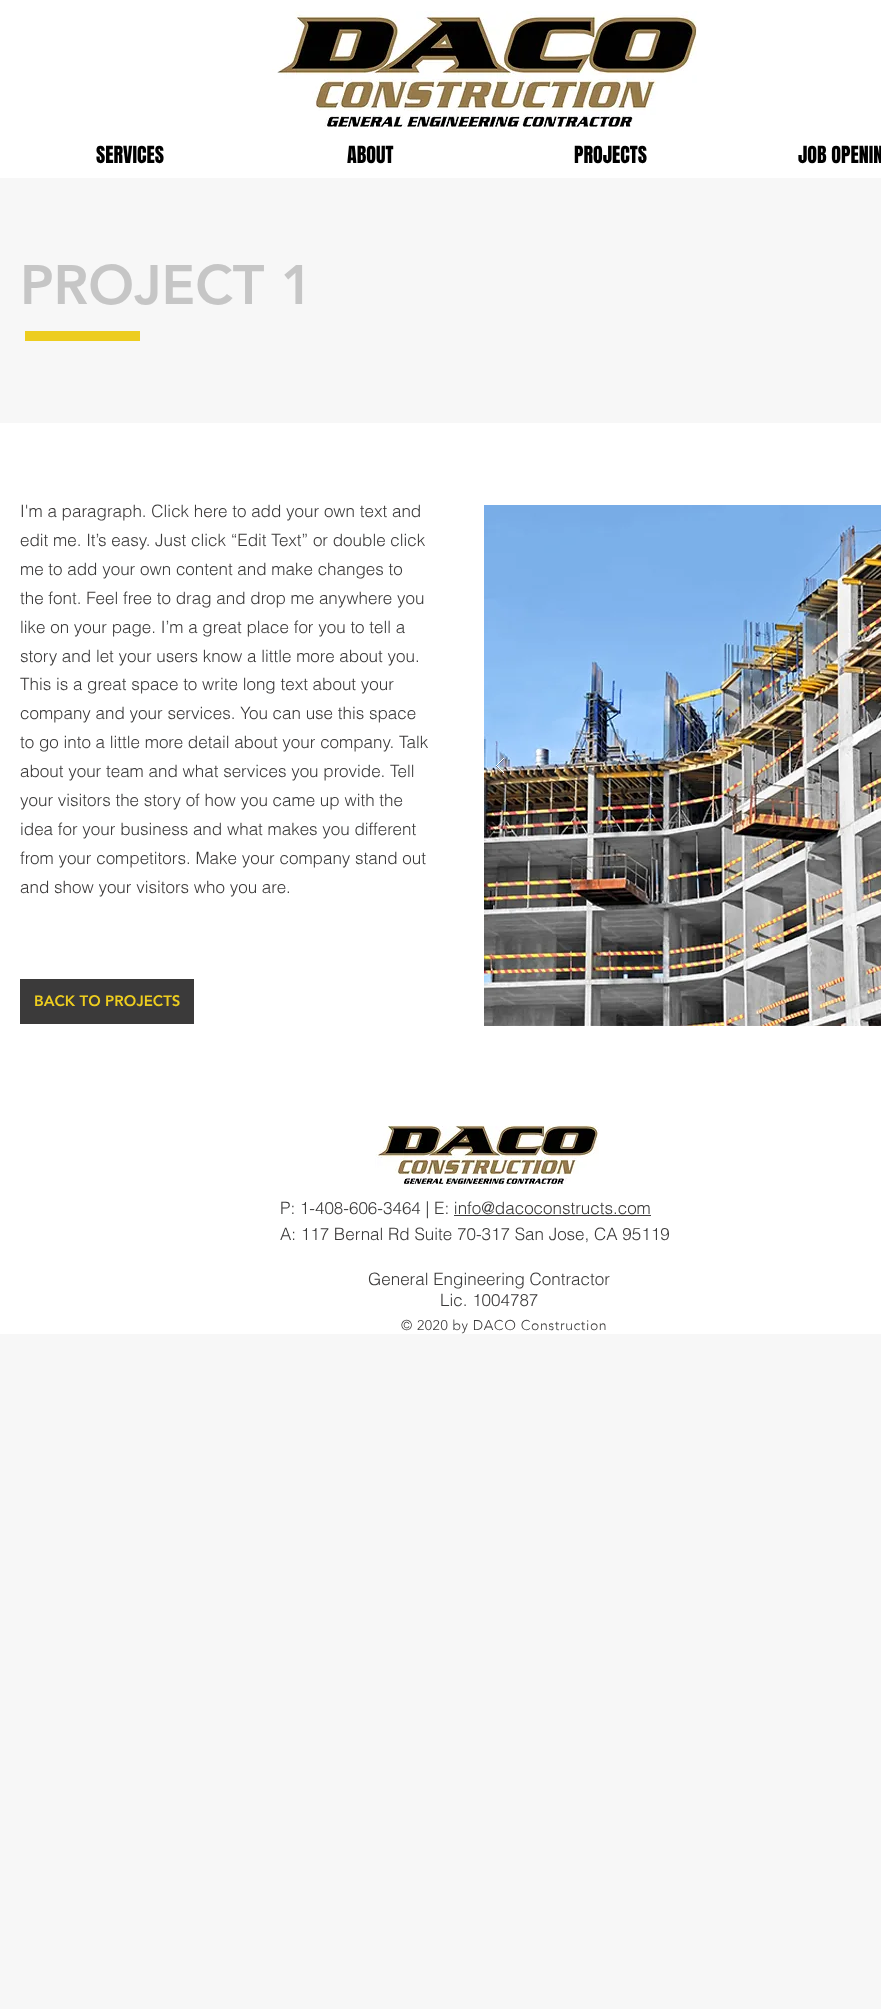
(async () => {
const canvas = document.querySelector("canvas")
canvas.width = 881
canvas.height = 2009
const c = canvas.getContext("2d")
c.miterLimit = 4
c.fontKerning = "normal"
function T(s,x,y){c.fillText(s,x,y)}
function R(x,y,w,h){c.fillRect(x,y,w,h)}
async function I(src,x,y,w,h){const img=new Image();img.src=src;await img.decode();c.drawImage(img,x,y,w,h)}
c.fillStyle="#f7f7f7"
R(0,0,881,2009)
c.fillStyle="#fff"
R(0,0,881,178)
await I("1.png",272,11,425,116)
c.font="20px Anton"
c.fillStyle="#000"
T("SERVICES",96,163)
T("ABOUT",347,163)
T("PROJECTS",574,163)
T("JOB OPENIN",798,163)
c.font="900 55px 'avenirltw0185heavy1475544'"
c.fillStyle="#c6c6c6"
T("PROJECT 1",20,304)
c.fillStyle="#edcd1f"
R(25,331,115,10)
c.fillStyle="#fff"
R(0,423,881,911)
c.font="300 17px helvetica"
c.fillStyle="#3b3a3a"
T("I'm a paragraph. Click here to add your own text and",20,517)
T("edit me. It’s easy. Just click “Edit Text” or double click",20,546)
T("me to add your own content and make changes to",20,575)
T("the font. Feel free to drag and drop me anywhere you",20,604)
T("like on your page. I’m a great place for you to tell a",20,633)
T("story and let your users know a little more about you.",20,662)
T("This is a great space to write long text about your",20,690)
T("company and your services. You can use this space",20,719)
T("to go into a little more detail about your company. Talk",20,748)
T("about your team and what services you provide. Tell",20,777)
T("your visitors the story of how you came up with the",20,806)
T("idea for your business and what makes you different",20,835)
T("from your competitors. Make your company stand out",20,864)
T("and show your visitors who you are.",20,893)
await I("2.png",484,505,397,521)
await I("3.png",496,758,8,16)
R(20,979,174,45)
c.font="900 15px 'avenirltw0185heavy1475544'"
c.fillStyle="#edcd1f"
T("BACK TO PROJECTS",34,1006)
await I("4.png",375,1125,224,61)
c.font="300 17px helvetica"
c.fillStyle="#3b3a3a"
T("P: 1-408-606-3464 | E: info@dacoconstructs.com",280,1214)
R(454,1215,197,1)
T("A: 117 Bernal Rd Suite 70-317 San Jose, CA 95119",280,1240)
T("General Engineering Contractor",368,1285)
T("Lic. 1004787",440,1306)
c.letterSpacing="0.55px"
c.font="300 14px 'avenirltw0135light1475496'"
T("© 2020 by DACO Construction",401,1330)
})()
